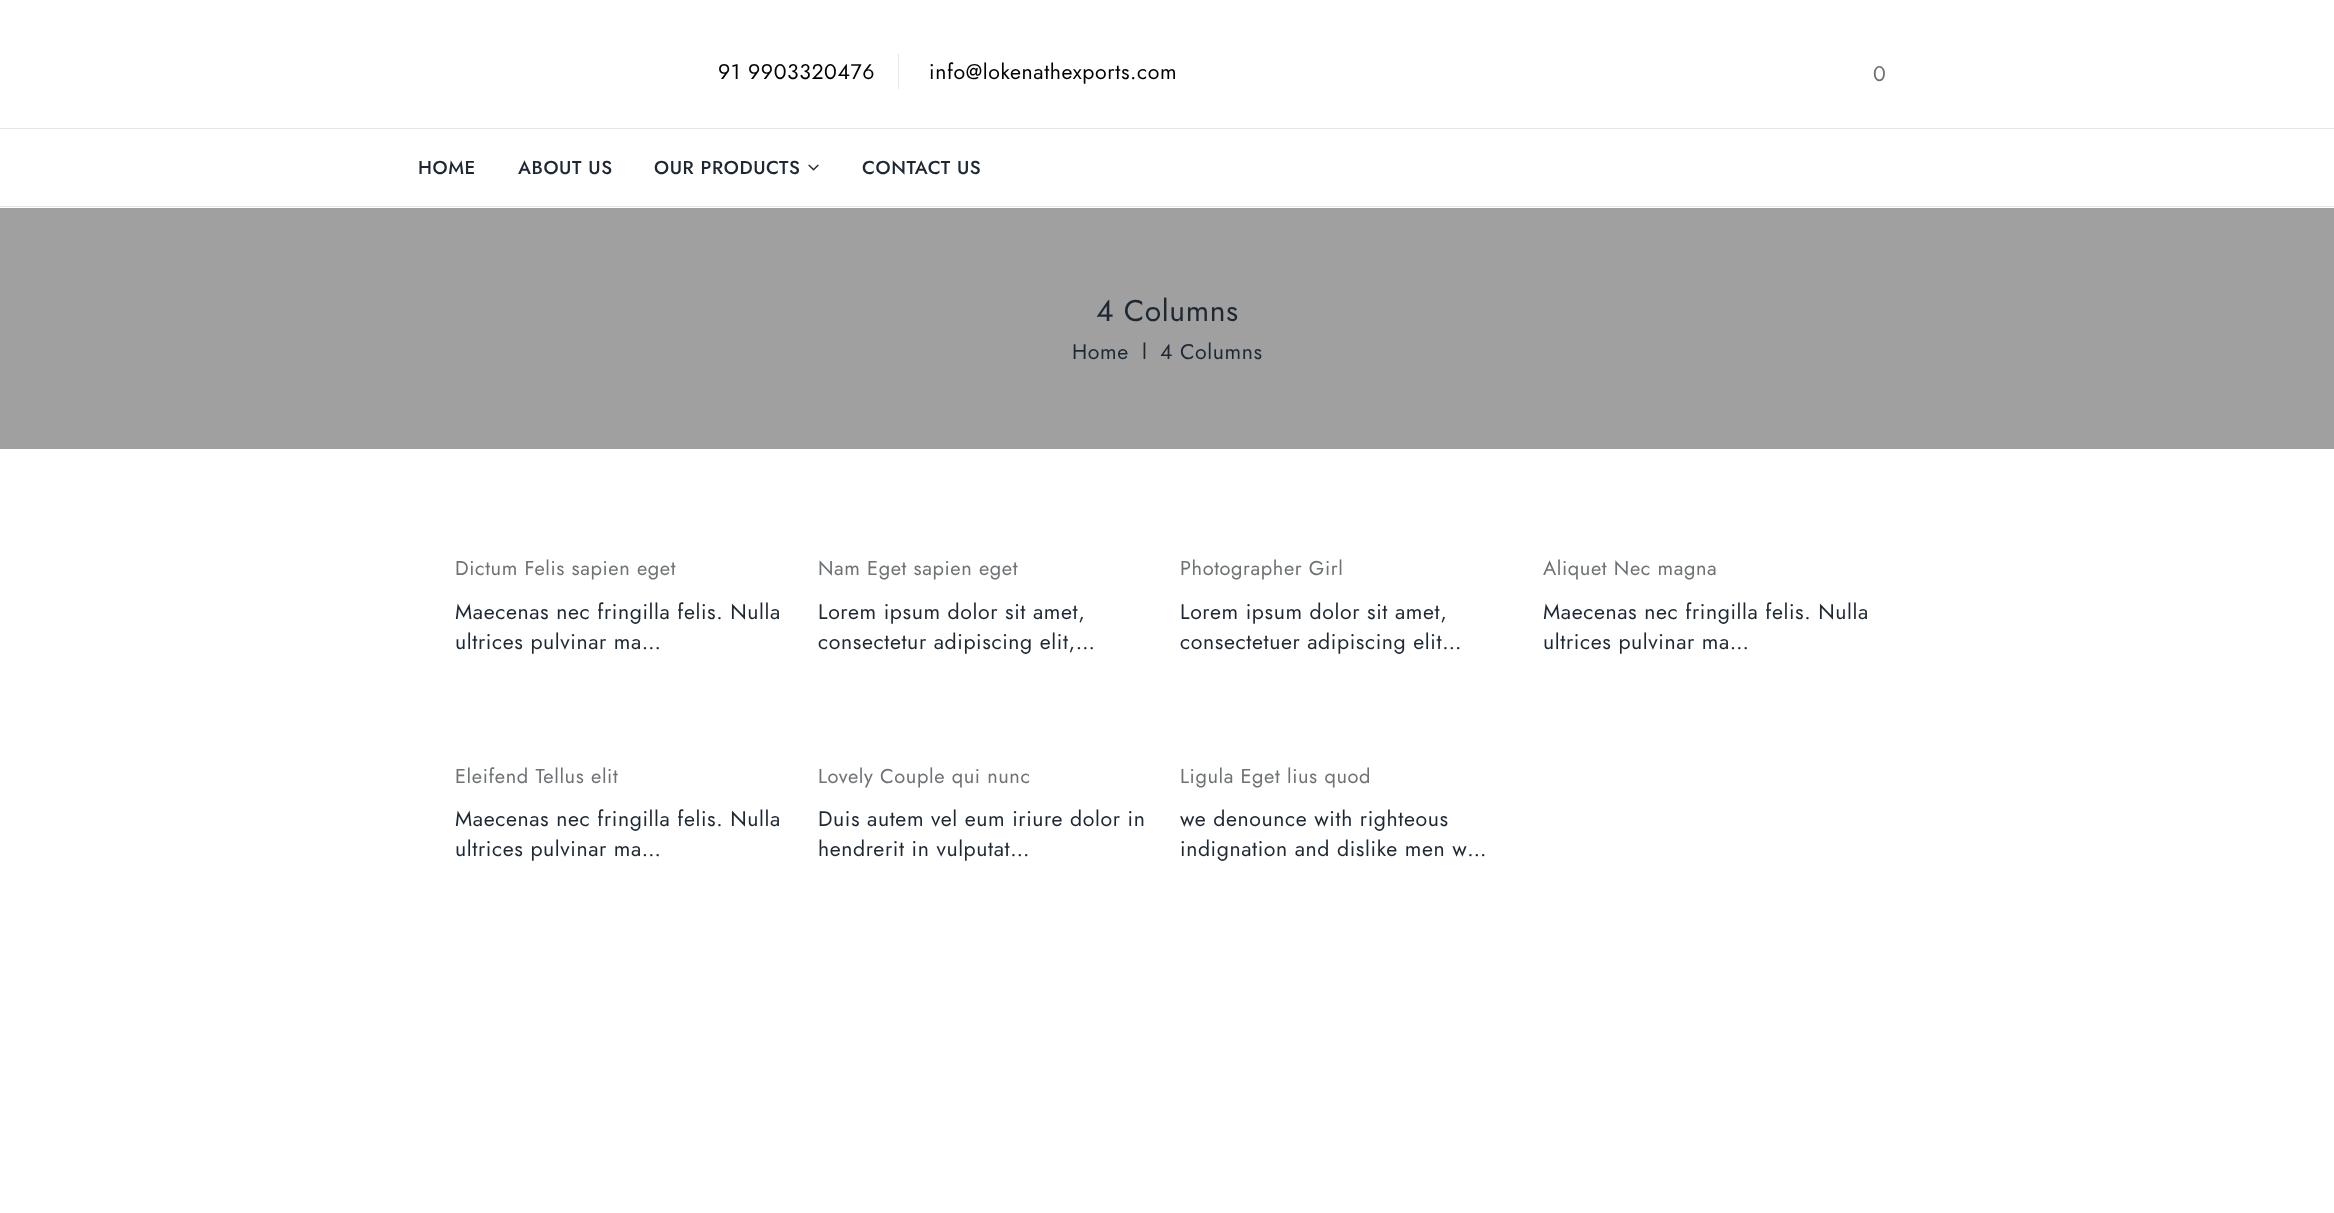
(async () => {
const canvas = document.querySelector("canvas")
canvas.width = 2334
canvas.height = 1213
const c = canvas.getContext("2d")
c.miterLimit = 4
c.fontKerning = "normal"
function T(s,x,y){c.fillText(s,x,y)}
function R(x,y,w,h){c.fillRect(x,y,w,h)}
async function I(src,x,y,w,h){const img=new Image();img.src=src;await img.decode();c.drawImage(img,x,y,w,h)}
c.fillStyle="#fff"
R(0,0,2334,1213)
c.letterSpacing="0.6px"
c.font="21.25px Jost"
c.fillStyle="#000"
T("91 9903320476",718,79)
c.fillStyle="#e6e6e6"
R(898,54,1,35)
c.fillStyle="#000"
T("info@lokenathexports.com",929,79)
c.fillStyle="#6e7275"
T("0",1873,81)
c.fillStyle="#e6e6e6"
R(0,128,2334,1)
R(0,206,2334,1)
c.font="500 18.75px Jost"
c.fillStyle="#1e2833"
T("HOME",418,174)
T("ABOUT US",518,174)
T("OUR PRODUCTS",654,174)
await I("1.png",808,164,11,7)
T("CONTACT US",862,174)
c.fillStyle="#a0a0a0"
R(0,208,2334,241)
c.font="30px Jost"
c.fillStyle="#1e2833"
T("4 Columns",1096,321)
c.font="21.25px Jost"
T("Home",1072,359)
T("l",1142,359)
T("4 Columns",1160,359)
c.font="20px Jost"
c.fillStyle="#6e7275"
T("Dictum Felis sapien eget",455,575)
c.font="21.25px Jost"
c.fillStyle="#1e2833"
T("Maecenas nec fringilla felis. Nulla",455,619)
T("ultrices pulvinar ma…",455,649)
c.font="20px Jost"
c.fillStyle="#6e7275"
T("Nam Eget sapien eget",818,575)
c.font="21.25px Jost"
c.fillStyle="#1e2833"
T("Lorem ipsum dolor sit amet,",818,619)
T("consectetur adipiscing elit,…",818,649)
c.font="20px Jost"
c.fillStyle="#6e7275"
T("Photographer Girl",1180,575)
c.font="21.25px Jost"
c.fillStyle="#1e2833"
T("Lorem ipsum dolor sit amet,",1180,619)
T("consectetuer adipiscing elit…",1180,649)
c.font="20px Jost"
c.fillStyle="#6e7275"
T("Aliquet Nec magna",1543,575)
c.font="21.25px Jost"
c.fillStyle="#1e2833"
T("Maecenas nec fringilla felis. Nulla",1543,619)
T("ultrices pulvinar ma…",1543,649)
c.font="20px Jost"
c.fillStyle="#6e7275"
T("Eleifend Tellus elit",455,783)
c.font="21.25px Jost"
c.fillStyle="#1e2833"
T("Maecenas nec fringilla felis. Nulla",455,826)
T("ultrices pulvinar ma…",455,856)
c.font="20px Jost"
c.fillStyle="#6e7275"
T("Lovely Couple qui nunc",818,783)
c.font="21.25px Jost"
c.fillStyle="#1e2833"
T("Duis autem vel eum iriure dolor in",818,826)
T("hendrerit in vulputat…",818,856)
c.font="20px Jost"
c.fillStyle="#6e7275"
T("Ligula Eget lius quod",1180,783)
c.font="21.25px Jost"
c.fillStyle="#1e2833"
T("we denounce with righteous",1180,826)
T("indignation and dislike men w…",1180,856)
})()
